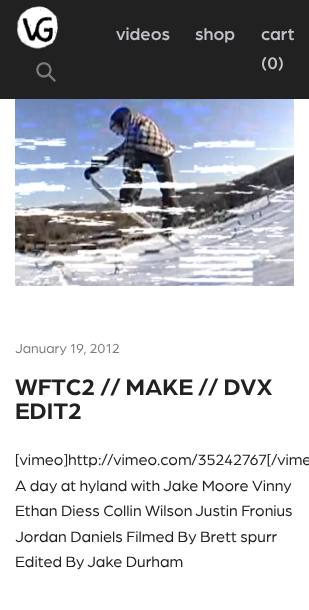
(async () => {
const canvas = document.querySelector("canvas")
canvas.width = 309
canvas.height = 610
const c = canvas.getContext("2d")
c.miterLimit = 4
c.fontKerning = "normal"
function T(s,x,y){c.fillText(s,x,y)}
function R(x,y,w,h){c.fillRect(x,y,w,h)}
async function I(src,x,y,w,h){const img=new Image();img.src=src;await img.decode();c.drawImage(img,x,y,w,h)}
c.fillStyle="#fff"
R(0,0,309,610)
c.fillStyle="#212121"
R(0,0,309,99)
await I("1.png",17,6,42,43)
await I("2.png",36,62,20,20)
c.font="500 18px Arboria"
c.fillStyle="#c0c0c9"
T("videos",116,40)
T("shop",195,40)
T("cart",261,40)
T("(0)",261,69)
await I("3.png",15,99,279,187)
c.font="14px Arboria"
c.fillStyle="#7c7c81"
T("January 19, 2012",15,353)
c.font="bold 24px Arboria"
c.fillStyle="#212121"
T("WFTC2 // MAKE // DVX",15,395)
T("EDIT2",15,419)
c.font="16px Arboria"
T("[vimeo]http://vimeo.com/35242767[/vime",15,465)
T("A day at hyland with",15,491)
T("Jake Moore",163,491)
T("Vinny",252,491)
T("Ethan Diess Collin Wilson",15,516)
T("Justin Fronius",195,516)
T("Jordan Daniels Filmed By Brett spurr",15,542)
T("Edited By",15,567)
T("Jake Durham",87,567)
})()
